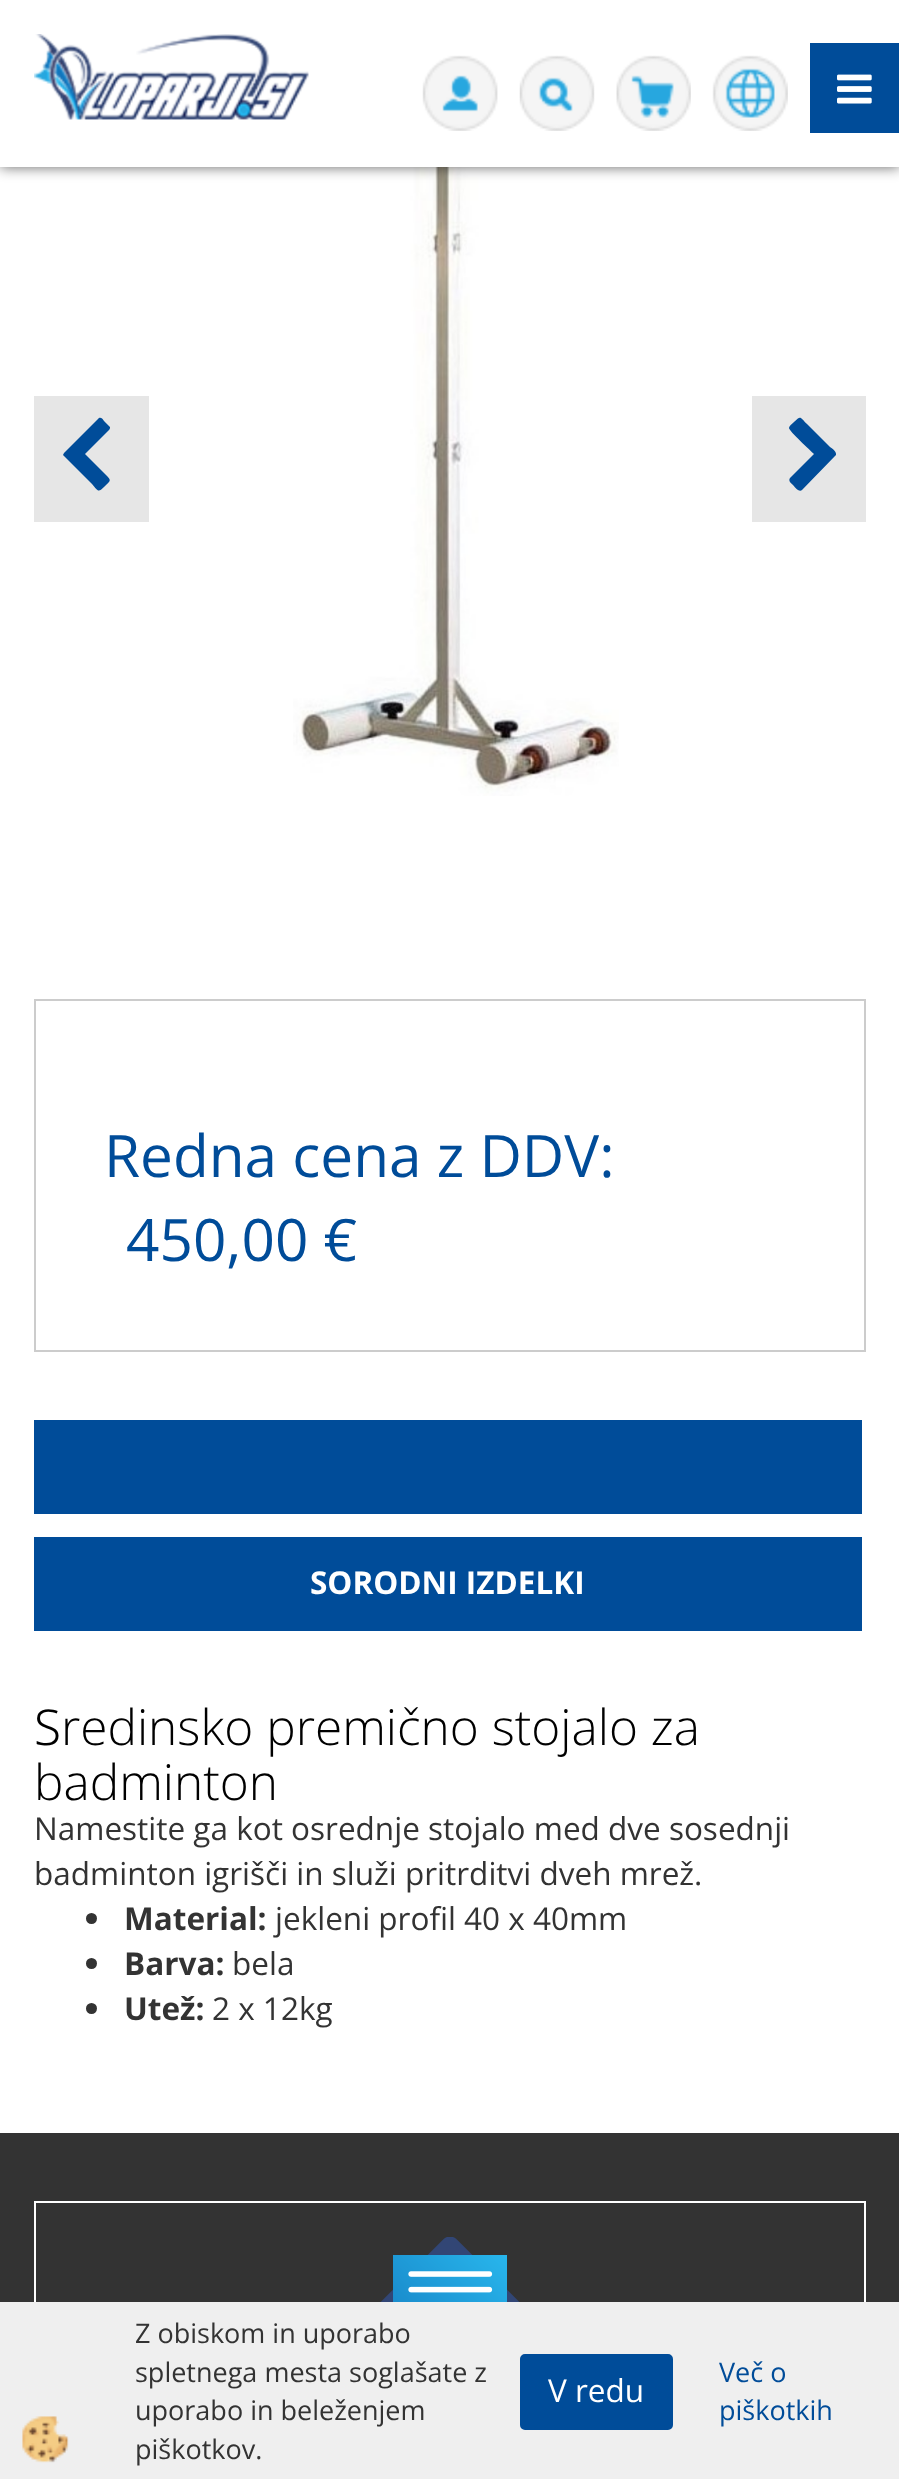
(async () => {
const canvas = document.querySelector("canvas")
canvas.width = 899
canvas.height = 2479
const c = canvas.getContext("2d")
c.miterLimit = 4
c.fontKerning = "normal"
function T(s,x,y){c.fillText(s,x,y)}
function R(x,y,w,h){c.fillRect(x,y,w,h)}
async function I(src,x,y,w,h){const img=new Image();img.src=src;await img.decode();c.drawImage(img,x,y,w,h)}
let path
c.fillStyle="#fff"
R(0,0,899,2479)
await I("7.png",293,167,326,629)
c.fillStyle="#00000099"
c.filter="blur(7px)"
c.beginPath()
c.rect(0,0,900,167)
c.fill()
c.filter="none"
c.fillStyle="#fff"
R(0,0,899,167)
await I("1.png",34,34,275,86)
await I("2.png",422,55,76,76)
await I("3.png",519,55,76,76)
await I("4.png",616,55,75,76)
await I("5.png",712,55,76,76)
c.fillStyle="#004c99"
R(810,43,89,90)
await I("6.png",837,74,35,30)
c.fillStyle="#e6e6e6"
R(34,396,115,126)
c.fillStyle="#004c99"
path = new Path2D("M109 430l-24 24l20 20c7 7 6 6-1 13c-6 6-6 4-12-3l-29-29l1-2l34-34c2-3 5 0 6 2l6 6c0 1 0 2-1 3z")
c.fill(path)
c.fillStyle="#e6e6e6"
R(752,396,114,126)
c.fillStyle="#004c99"
path = new Path2D("M835 456l-33 34c-3 3-8-4-9-5c-2-2-5-4-3-7l24-24c-3-3-25-23-25-26c0-2 3-4 5-6c7-7 6-5 13 2l23 23c0 0 7 4 6 8z")
c.fill(path)
c.strokeStyle="#ccc"
c.lineWidth=2
c.strokeRect(35,1000,830,351)
c.font="58.5px Open Sans"
T("Redna cena z DDV:",104,1177)
T("450,00 €",126,1261)
R(34,1420,828,94)
R(34,1537,828,94)
c.font="bold 31.5px Open Sans"
c.fillStyle="#fff"
T("SORODNI IZDELKI",310,1594)
c.font="300 49.5px Noto Sans"
c.fillStyle="#000"
T("S",34,1745)
c.font="300 49.5px Open Sans"
T("redinsko premično stojalo za",61,1745)
T("badminton",34,1800)
c.font="31.5px Open Sans"
c.fillStyle="#333"
T("Namestite ga kot osrednje stojalo med dve sosednji",34,1840)
T("badminton igrišči in služi pritrditvi dveh mrež.",34,1885)
c.beginPath()
c.arc(91.5,1918.5,5.5,0,7)
c.fill()
c.font="bold 31.5px Open Sans"
T("Material:",124,1930)
c.font="31.5px Open Sans"
T("jekleni profil 40 x 40mm",275,1930)
c.beginPath()
c.arc(91.5,1963.5,5.5,0,7)
c.fill()
c.font="bold 31.5px Open Sans"
T("Barva:",124,1975)
c.font="31.5px Open Sans"
T("bela",232,1975)
c.beginPath()
c.arc(91.5,2008.5,5.5,0,7)
c.fill()
c.font="bold 31.5px Open Sans"
T("Utež:",124,2020)
c.font="31.5px Open Sans"
T("2 x 12kg",212,2020)
R(0,2133,899,169)
c.strokeStyle="#fff"
c.strokeRect(35,2202,830,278)
await I("8.png",380,2237,140,65)
c.fillStyle="#efefef"
R(0,2302,899,177)
await I("9.png",22,2416,47,47)
c.font="27px Open Sans"
c.fillStyle="#333"
T("Z obiskom in uporabo",135,2343)
T("spletnega mesta soglašate z",135,2382)
c.fillStyle="#004c99"
c.beginPath()
c.roundRect(521,2355,151,74,4)
c.fill()
c.strokeStyle="#004c99"
c.stroke()
c.font="31.5px Open Sans"
c.fillStyle="#fff"
T("V redu",548,2402)
c.font="27px Open Sans"
c.fillStyle="#004c99"
T("Več o",719,2382)
T("piškotkih",719,2420)
c.fillStyle="#333"
T("uporabo in beleženjem",135,2420)
T("piškotkov.",135,2459)
})()
